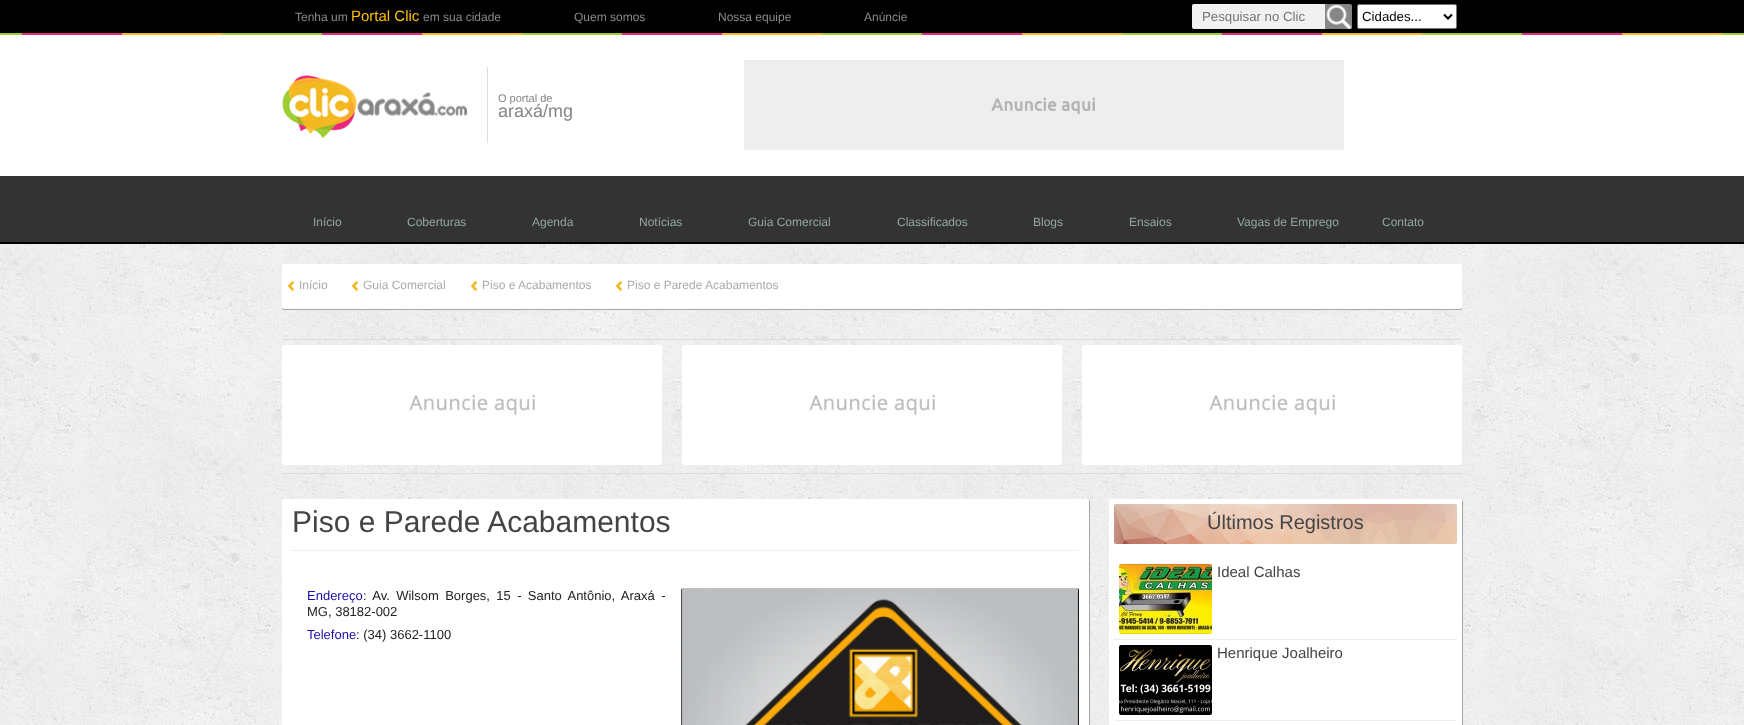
(async () => {
const canvas = document.querySelector("canvas")
canvas.width = 1744
canvas.height = 725
const c = canvas.getContext("2d")
c.miterLimit = 4
c.fontKerning = "normal"
function T(s,x,y){c.fillText(s,x,y)}
function R(x,y,w,h){c.fillRect(x,y,w,h)}
function Q(x,y,w,h,r){c.beginPath();c.roundRect(x,y,w,h,r);c.fill()}
async function I(src,x,y,w,h){const img=new Image();img.src=src;await img.decode();c.drawImage(img,x,y,w,h)}
let path
c.fillStyle="#fff"
R(0,0,1744,725)
await I("1.png",0,244,1744,481)
c.fillStyle="#000"
R(0,0,1744,33)
await I("2.png",0,33,1744,2)
c.font="12px Liberation Sans"
c.fillStyle="#8b8b8b"
T("Tenha um",295,21)
c.font="15px Liberation Sans"
c.fillStyle="#ffbf00"
T("Portal Clic",351,21)
c.font="12px Liberation Sans"
c.fillStyle="#8b8b8b"
T("em sua cidade",423,21)
T("Quem somos",574,21)
T("Nossa equipe",718,21)
T("Anúncie",864,21)
c.fillStyle="#f1f1f1"
c.beginPath()
c.roundRect(1192,4,133,25,[2,0,0,2])
c.fill()
c.font="13.25px Liberation Sans"
c.fillStyle="#757575"
T("Pesquisar no Clic",1202,21)
c.fillStyle="#848688"
c.beginPath()
c.roundRect(1325,4,27,25,[0,2,2,0])
c.fill()
await I("3.png",1326,4,26,25)
c.fillStyle="#fff"
c.beginPath()
c.roundRect(1357.5,4.5,99,24,1.5)
c.fill()
c.strokeStyle="#777"
c.stroke()
path = new Path2D("M1444 14.5l4 4l4-4")
c.strokeStyle="#000"
c.lineWidth=2
c.stroke(path)
c.fillStyle="#000"
T("Cidades...",1362,21)
await I("4.png",282,75,185,64)
c.fillStyle="#ddd"
R(487,67,1,76)
c.font="11px Liberation Sans"
c.fillStyle="#848586"
T("O portal de",498,102)
c.font="18px Liberation Sans"
T("araxá/mg",498,117)
await I("5.png",744,60,600,90)
c.fillStyle="#333"
R(0,176,1744,66)
c.fillStyle="#000"
R(0,242,1744,2)
c.font="12px Liberation Sans"
c.fillStyle="#95a5a5"
T("Início",313,226)
T("Coberturas",407,226)
T("Agenda",532,226)
T("Notícias",639,226)
T("Guia Comercial",748,226)
T("Classificados",897,226)
T("Blogs",1033,226)
T("Ensaios",1129,226)
T("Vagas de Emprego",1237,226)
T("Contato",1382,226)
c.fillStyle="#a5a5a5"
c.filter="blur(0.5px)"
c.beginPath()
c.roundRect(282,265,1180,45,2)
c.fill()
c.filter="none"
c.fillStyle="#fff"
Q(282,264,1180,45,2)
await I("6.png",288,281,6,10)
c.fillStyle="#aaa"
T("Início",299,289)
await I("6.png",352,281,6,10)
T("Guia Comercial",363,289)
await I("6.png",471,281,6,10)
T("Piso e Acabamentos",482,289)
await I("6.png",616,281,6,10)
T("Piso e Parede Acabamentos",627,289)
c.fillStyle="#ddd"
R(282,339,1180,1)
R(282,473,1180,1)
await I("7.png",282,345,380,120)
await I("7.png",682,345,380,120)
await I("7.png",1082,345,380,120)
c.fillStyle="#a5a5a5"
c.filter="blur(0.5px)"
c.beginPath()
c.roundRect(283,500,807,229,2)
c.fill()
c.filter="none"
c.fillStyle="#fff"
Q(282,499,807,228,2)
c.fillStyle="#eee"
R(292,550,787,1)
c.font="30px Liberation Sans"
c.fillStyle="#444"
T("Piso e Parede Acabamentos",292,532)
c.font="13px Liberation Sans"
c.fillStyle="#1a0dab"
T("Endereço",307,600)
c.wordSpacing="2.75px"
c.fillStyle="#222"
T(": Av. Wilsom Borges, 15 - Santo Antônio, Araxá -",363,600)
c.wordSpacing="0px"
T("MG, 38182-002",307,616)
await I("8.png",681,588,398,137)
c.fillStyle="#1a0dab"
T("Telefone",307,639)
c.fillStyle="#222"
T(": (34) 3662-1100",356,639)
c.fillStyle="#a5a5a5"
c.filter="blur(0.5px)"
c.beginPath()
c.roundRect(1110,500,353,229,2)
c.fill()
c.filter="none"
c.fillStyle="#fff"
Q(1109,499,353,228,2)
await I("9.png",1114,504,343,40)
c.font="20px Liberation Sans"
c.fillStyle="#444"
T("Últimos Registros",1207,529)
c.fillStyle="#eee"
R(1114,639,343,1)
await I("10.png",1119,564,93,70)
c.font="15px Liberation Sans"
c.fillStyle="#444"
T("Ideal Calhas",1217,577)
c.fillStyle="#eee"
R(1114,720,343,1)
await I("11.png",1119,645,93,70)
c.fillStyle="#444"
T("Henrique Joalheiro",1217,658)
})()
